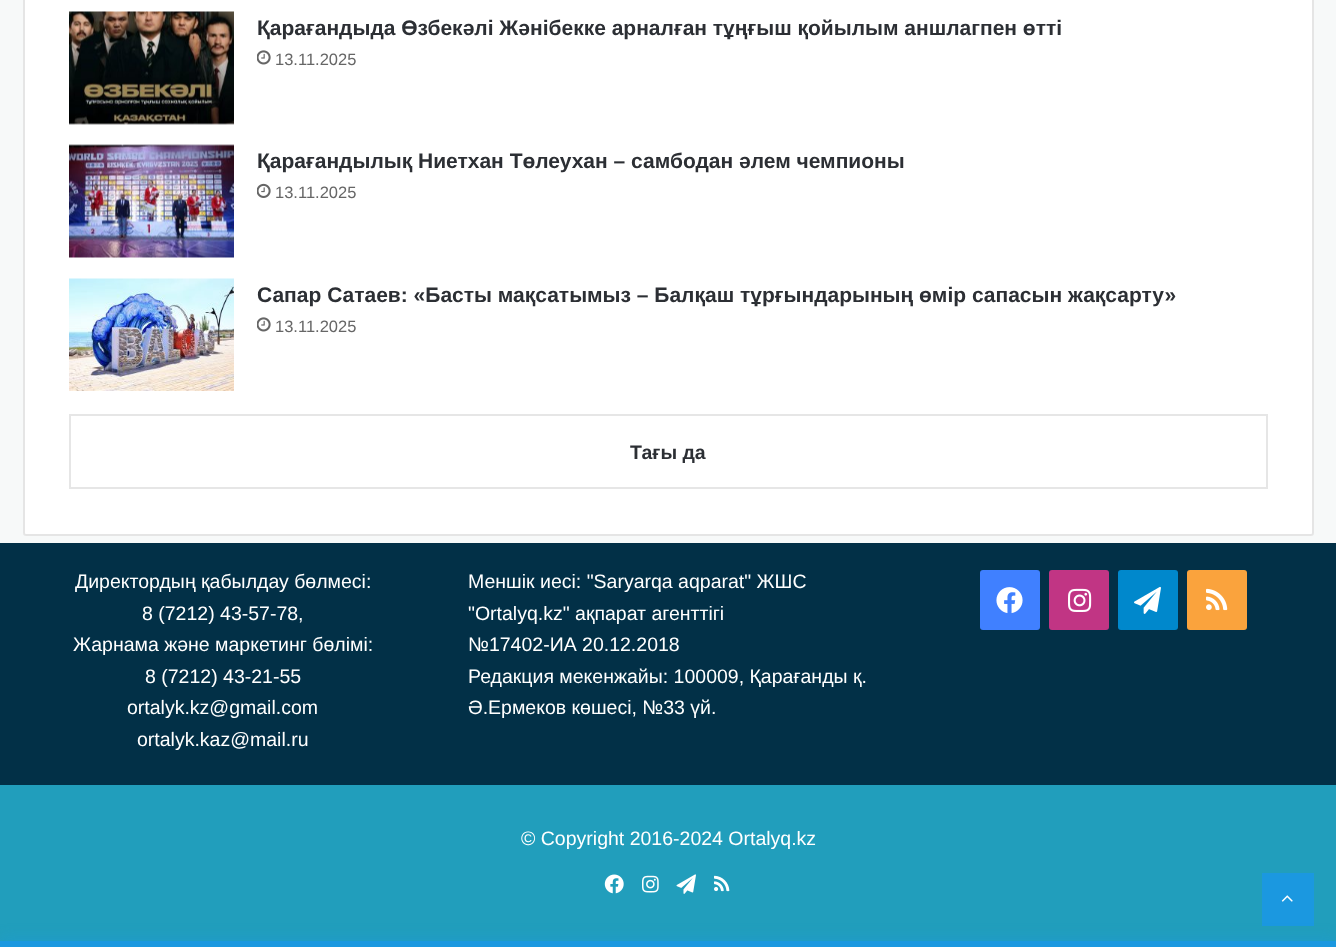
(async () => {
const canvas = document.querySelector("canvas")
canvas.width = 1336
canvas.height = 947
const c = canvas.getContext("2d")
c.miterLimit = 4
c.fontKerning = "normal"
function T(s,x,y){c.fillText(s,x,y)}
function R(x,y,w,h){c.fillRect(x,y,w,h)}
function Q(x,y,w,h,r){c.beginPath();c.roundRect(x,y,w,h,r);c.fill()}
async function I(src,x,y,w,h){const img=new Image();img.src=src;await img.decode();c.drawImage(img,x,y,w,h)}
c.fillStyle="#f7f9f9"
R(0,0,1336,947)
c.fillStyle="#fff"
Q(23,-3,1291,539,3)
c.beginPath()
c.roundRect(24,-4,1289,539,2)
c.strokeStyle="#0000001a"
c.lineWidth=2
c.stroke()
await I("1.png",69,11,165,114)
c.font="bold 21px Liberation Sans"
c.fillStyle="#2c2f34"
T("Қарағандыда Өзбекәлі Жәнібекке арналған тұңғыш қойылым аншлагпен өтті",257,35)
await I("2.png",257,50,14,15)
c.font="16.5px Liberation Sans"
c.fillStyle="#666"
T("13.11.2025",275,65)
await I("3.png",69,144,165,114)
c.font="bold 21px Liberation Sans"
c.fillStyle="#2c2f34"
T("Қарағандылық Ниетхан Төлеухан – самбодан әлем чемпионы",257,168)
await I("4.png",257,183,14,15)
c.font="16.5px Liberation Sans"
c.fillStyle="#666"
T("13.11.2025",275,198)
await I("5.png",69,278,165,113)
c.font="bold 21px Liberation Sans"
c.fillStyle="#2c2f34"
T("Сапар Сатаев: «Басты мақсатымыз – Балқаш тұрғындарының өмір сапасын жақсарту»",257,302)
await I("2.png",257,317,14,15)
c.font="16.5px Liberation Sans"
c.fillStyle="#666"
T("13.11.2025",275,332)
c.strokeStyle="#e6e6e6"
c.strokeRect(70,415,1197,73)
c.font="bold 19.5px Liberation Sans"
c.fillStyle="#2c2f34"
T("Тағы да",630,459)
c.fillStyle="#023047"
R(0,543,1336,242)
c.font="19.5px Liberation Sans"
c.fillStyle="#fff"
T("Директордың қабылдау бөлмесі:",75,588)
T("8 (7212) 43-57-78,",142,620)
T("Жарнама және маркетинг бөлімі:",73,651)
T("8 (7212) 43-21-55",145,683)
T("ortalyk.kz@gmail.com",127,714)
T("ortalyk.kaz@mail.ru",137,746)
T("Меншік иесі: \"Saryarqa aqparat\" ЖШС",468,588)
T("\"Ortalyq.kz\" ақпарат агенттігі",468,620)
T("№17402-ИА 20.12.2018",468,651)
T("Редакция мекенжайы: 100009, Қарағанды қ.",468,683)
T("Ә.Ермеков көшесі, №33 үй.",468,714)
c.fillStyle="#4080ff"
Q(980,570,60,60,3)
await I("6.png",996,587,27,27)
c.fillStyle="#c13584"
Q(1049,570,60,60,3)
await I("7.png",1068,588,24,24)
c.fillStyle="#08c"
Q(1118,570,60,60,3)
await I("8.png",1134,586,27,28)
c.fillStyle="#faa33d"
Q(1187,570,60,60,3)
await I("9.png",1206,588,22,23)
c.fillStyle="#219ebc"
R(0,785,1336,156)
c.fillStyle="#fff"
T("© Copyright 2016-2024 Ortalyq.kz",521,845)
await I("10.png",604,874,20,20)
await I("11.png",642,875,17,18)
await I("12.png",676,874,20,20)
await I("13.png",714,875,16,17)
c.fillStyle="#1b98e0"
R(1262,873,52,53)
await I("14.png",1281,895,12,7)
c.fillStyle="#1b98e0b3"
c.filter="blur(7.5px)"
c.beginPath()
c.rect(0,941,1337,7)
c.fill()
c.filter="none"
c.fillStyle="#1b98e0"
R(0,941,1336,6)
})()
